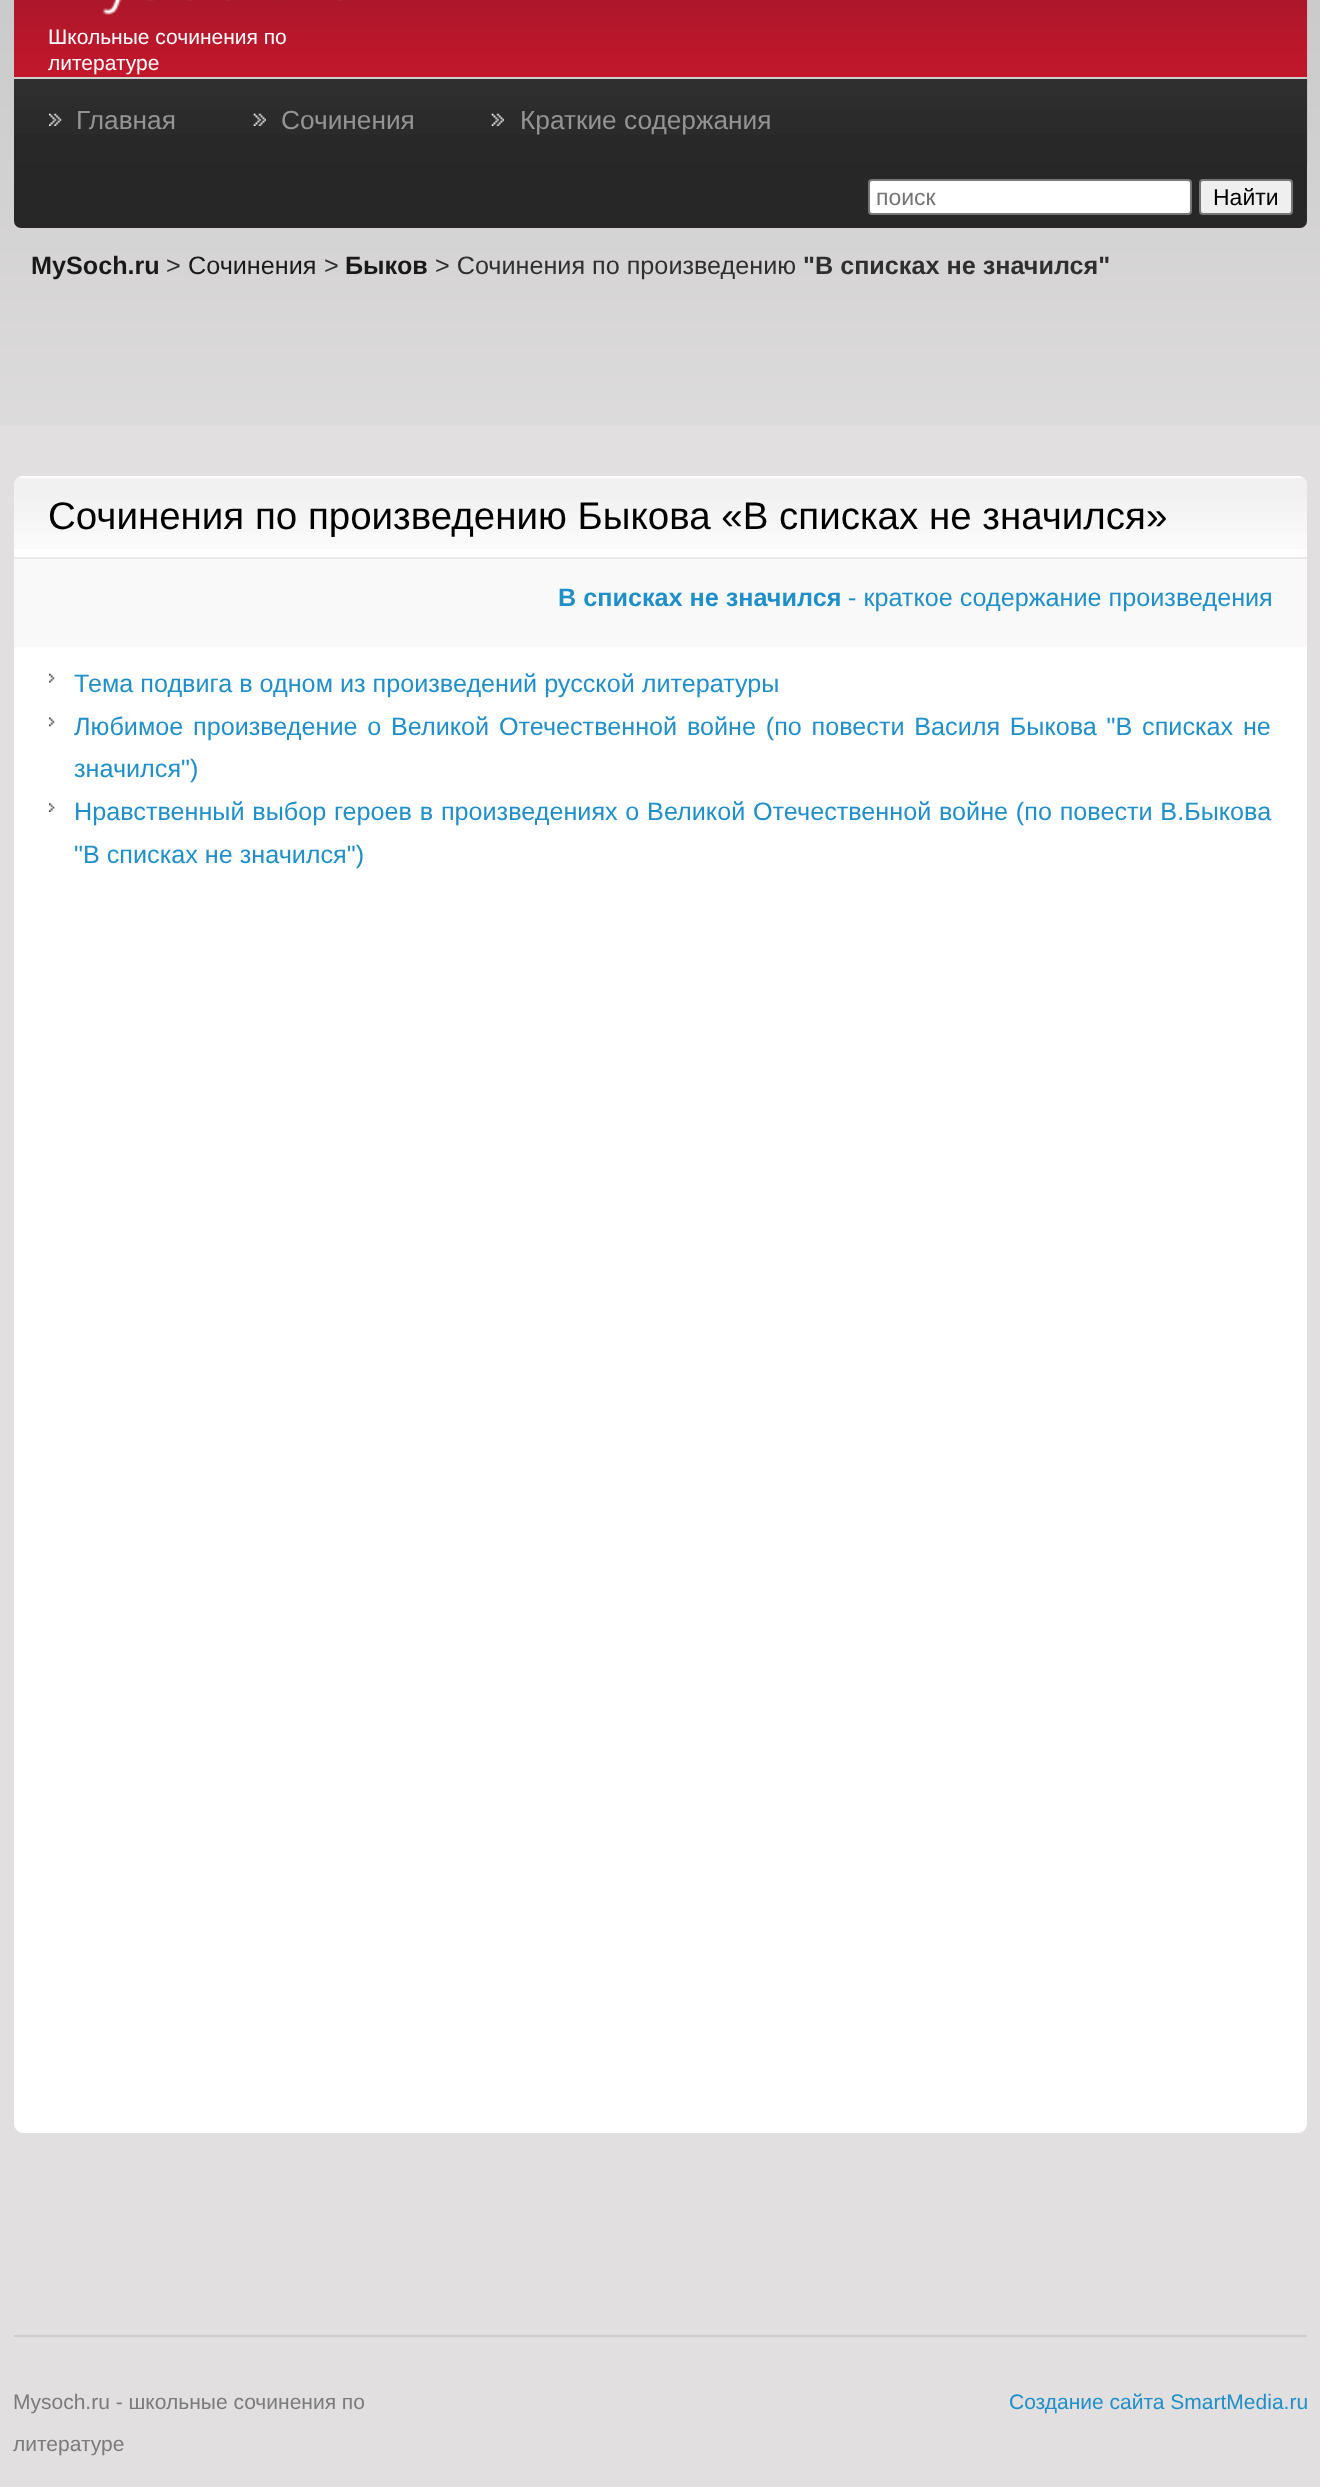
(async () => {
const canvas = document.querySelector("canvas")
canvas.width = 1320
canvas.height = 2487
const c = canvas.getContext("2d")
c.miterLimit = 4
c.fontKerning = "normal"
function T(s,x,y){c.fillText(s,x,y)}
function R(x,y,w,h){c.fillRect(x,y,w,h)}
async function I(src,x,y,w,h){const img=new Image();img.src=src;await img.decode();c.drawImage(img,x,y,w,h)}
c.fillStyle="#e1dfdf"
R(0,0,1320,2487)
await I("1.png",0,0,1320,426)
await I("2.png",14,0,1294,82)
await I("3.png",102,0,241,15)
c.font="21px Liberation Sans"
c.fillStyle="#fff"
T("Школьные сочинения по",48,44)
T("литературе",48,70)
c.fillStyle="#272727"
c.beginPath()
c.roundRect(14,77,1293,151,[0,0,7,7])
c.fill()
await I("4.png",14,79,1294,86)
c.fillStyle="#d0cfcf"
R(14,77,1293,2)
await I("5.png",49,113,13,13)
c.font="26.25px Liberation Sans"
c.fillStyle="#959494"
T("Главная",76,129)
await I("6.png",253,113,13,13)
T("Сочинения",281,129)
await I("6.png",491,113,13,13)
T("Краткие содержания",520,129)
c.fillStyle="#fff"
c.beginPath()
c.roundRect(869,180,322,34,3)
c.fill()
c.strokeStyle="#767676"
c.lineWidth=2
c.stroke()
c.font="23px Liberation Sans"
c.fillStyle="#757575"
T("поиск",876,205)
c.fillStyle="#efefef"
c.beginPath()
c.roundRect(1200,180,92,34,3)
c.fill()
c.stroke()
c.fillStyle="#000"
T("Найти",1213,205)
c.font="bold 25.2px Liberation Sans"
c.fillStyle="#191919"
T("MySoch.ru",31,274)
c.font="25.2px Liberation Sans"
c.fillStyle="#2f2f2f"
T(">",166,274)
c.fillStyle="#191919"
T("Сочинения",188,274)
c.fillStyle="#2f2f2f"
T(">",324,274)
c.font="bold 25.2px Liberation Sans"
c.fillStyle="#191919"
T("Быков",345,274)
c.font="25.2px Liberation Sans"
c.fillStyle="#2f2f2f"
T("> Сочинения по произведению",435,274)
c.font="bold 25.2px Liberation Sans"
T("\"В списках не значился\"",803,274)
c.fillStyle="#fff"
c.beginPath()
c.roundRect(14,476,1293,82,[9,9,0,0])
c.fill()
await I("7.png",14,476,1293,73)
c.beginPath()
c.roundRect(14,558,1293,1575,[0,0,9,9])
c.fill()
c.fillStyle="#e9e9e9"
R(14,557,1293,2)
c.font="38.5px Liberation Sans"
c.fillStyle="#000"
T("Сочинения по произведению Быкова «В списках не значился»",48,529)
c.fillStyle="#f9f9f9"
R(14,559,1293,88)
c.font="bold 25.2px Liberation Sans"
c.fillStyle="#1f8fca"
T("В списках не значился",558,606)
c.font="25.2px Liberation Sans"
T("- краткое содержание произведения",848,606)
await I("8.png",49,673,6,10)
T("Тема подвига в одном из произведений русской литературы",74,692)
await I("9.png",49,717,6,10)
c.wordSpacing="2.75px"
T("Любимое произведение о Великой Отечественной войне (по повести Василя Быкова \"В списках не",74,735)
c.wordSpacing="0px"
T("значился\")",74,777)
await I("10.png",49,803,6,9)
c.wordSpacing="0.75px"
T("Нравственный выбор героев в произведениях о Великой Отечественной войне (по повести В.Быкова",74,820)
c.wordSpacing="0px"
T("\"В списках не значился\")",74,863)
c.fillStyle="#ccc"
R(14,2335,1293,2)
c.font="21px Liberation Sans"
c.fillStyle="#7b7b7b"
T("Mysoch.ru - школьные сочинения по",13,2409)
T("литературе",13,2451)
c.fillStyle="#1f8fca"
T("Создание сайта SmartMedia.ru",1009,2409)
})()
